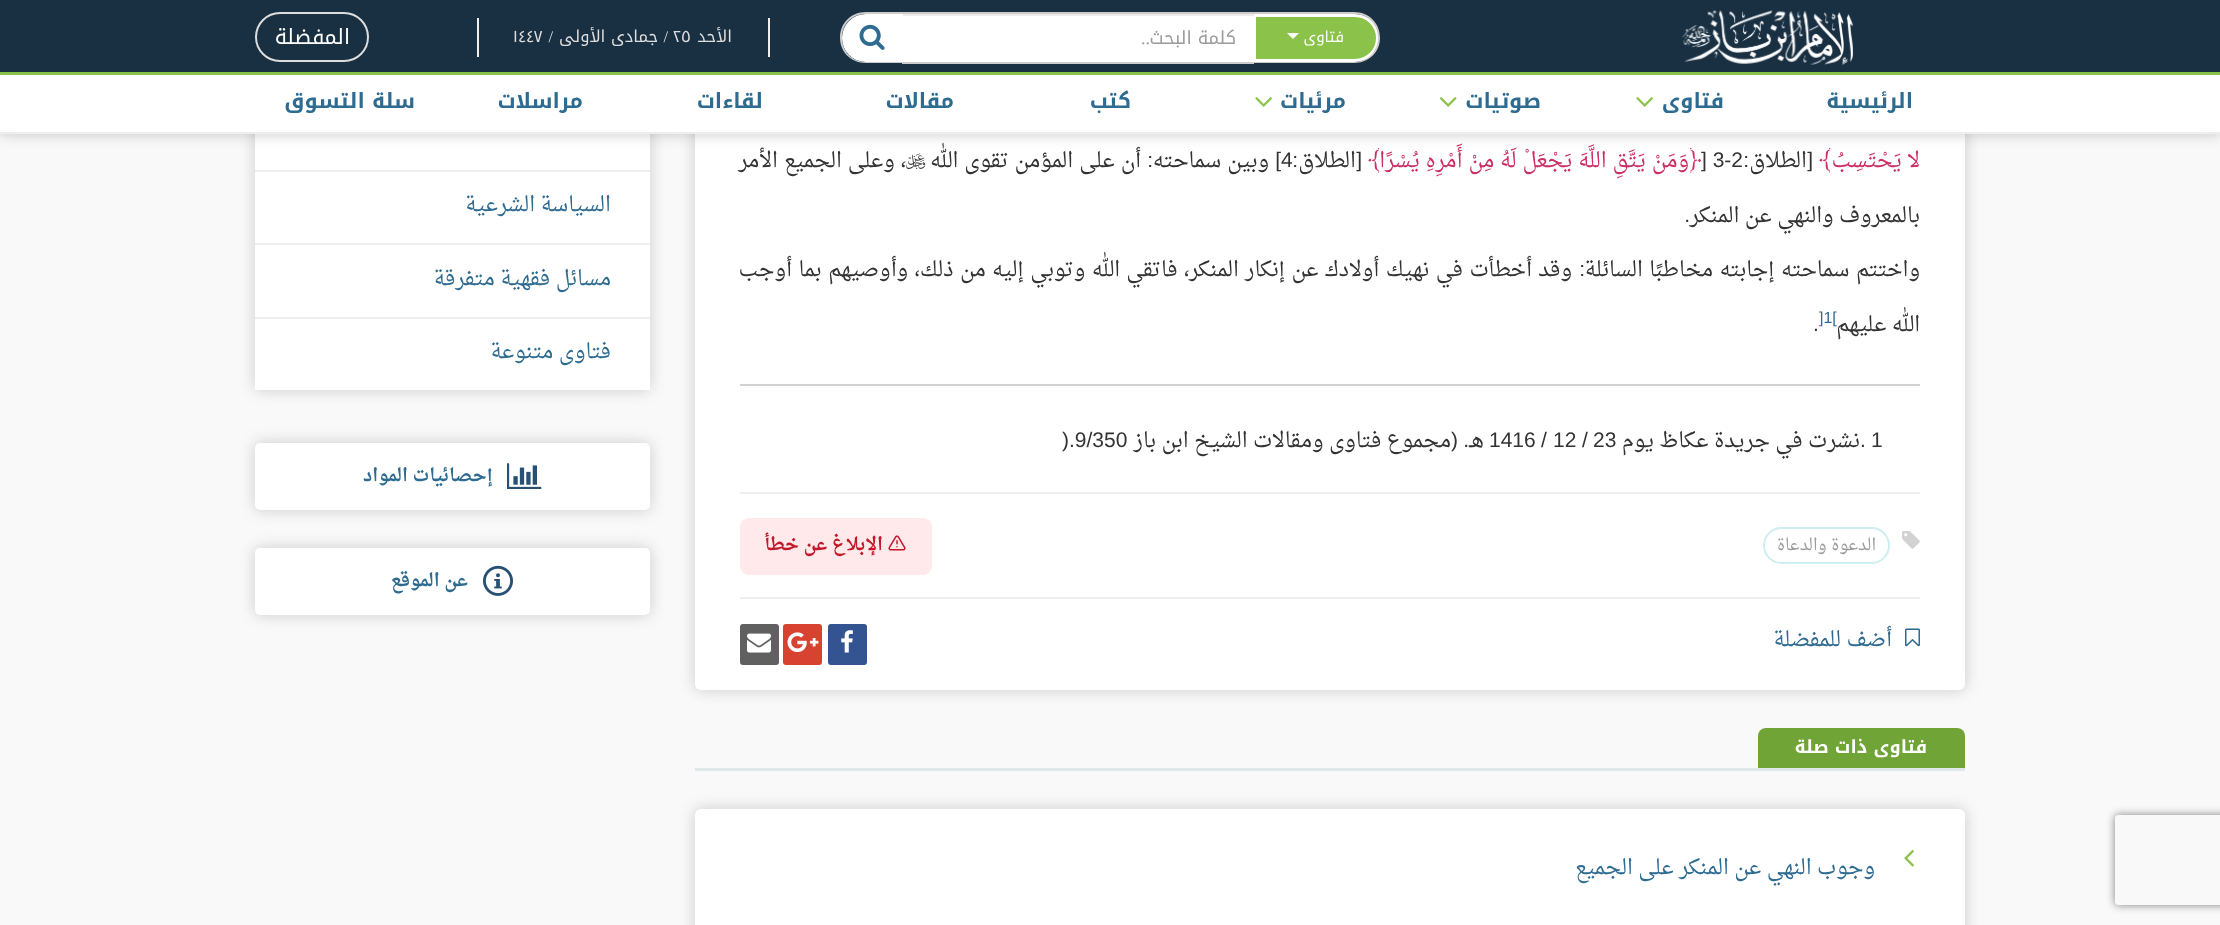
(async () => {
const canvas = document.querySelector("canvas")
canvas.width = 2220
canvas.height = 925
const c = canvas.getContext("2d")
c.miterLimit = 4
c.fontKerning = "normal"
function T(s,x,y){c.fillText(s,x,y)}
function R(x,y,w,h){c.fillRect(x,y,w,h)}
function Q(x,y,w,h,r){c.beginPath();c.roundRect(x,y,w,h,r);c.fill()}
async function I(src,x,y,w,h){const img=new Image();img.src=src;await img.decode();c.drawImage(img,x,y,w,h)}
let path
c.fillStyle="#f9f9f9"
R(0,0,2220,925)
c.save()
path = new Path2D("M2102 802h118v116h-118zm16 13h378c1.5 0 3 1.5 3 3v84c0 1.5-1.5 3-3 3h-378c-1.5 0-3-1.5-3-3v-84c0-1.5 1.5-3 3-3z")
c.clip(path,"evenodd")
c.fillStyle="#808080"
c.filter="blur(4px)"
c.beginPath()
c.roundRect(2115,815,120,90,3)
c.fill()
c.filter="none"
c.restore()
c.fillStyle="#88888866"
c.filter="blur(7.5px)"
c.beginPath()
c.roundRect(695,-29,1270,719,6)
c.fill()
c.filter="none"
c.fillStyle="#fff"
Q(695,-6,1270,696,6)
await I("5.png",906,153,20,16)
c.fillStyle="#88888866"
c.filter="blur(7.5px)"
c.beginPath()
c.roundRect(255,-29,395,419,6)
c.fill()
c.filter="none"
c.fillStyle="#fff"
R(255,134,395,183)
c.fillStyle="#6464644d"
c.filter="blur(7px)"
c.beginPath()
c.rect(-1,-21,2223,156)
c.fill()
c.filter="none"
c.fillStyle="#193043"
R(0,0,2220,72)
c.fillStyle="#8bc34a"
R(0,72,2220,3)
await I("1.png",1682,10,171,55)
c.beginPath()
c.roundRect(1254.5,15.5,123,45,[0,22.5,22.5,0])
c.fill()
c.strokeStyle="#fff"
c.lineWidth=3
c.stroke()
c.fillStyle="#ccc"
path = new Path2D("M1252 12h102c15 0 26 11 26 26c0 14-11 25-26 25h-102zm0 2h102c14 0 24 10 24 24c0 13-10 24-24 24h-102z")
c.fill(path,"evenodd")
c.direction="rtl"
c.font="15px Noto Kufi Arabic"
c.fillStyle="#fff"
T("فتاوى",1344,42)
path = new Path2D("M1287 33h12l-6 6z")
c.fill(path)
R(903,16,350,46)
c.fillStyle="#ececec"
R(902,14,352,2)
c.fillStyle="#ccc"
R(902,12,352,2)
R(902,62,352,2)
c.font="18px Noto Kufi Arabic"
c.fillStyle="#9b9b9b"
T("كلمة البحث",1236,44)
c.font="18px Liberation Serif"
T("..",1150,44)
c.fillStyle="#fff"
c.beginPath()
c.roundRect(842,14,61,48,[24,0,0,24])
c.fill()
c.fillStyle="#ccc"
path = new Path2D("M866 12h37v51h-37c-15 0-26-11-26-25c0-15 11-26 26-26zm0 2h37v48h-37c-14 0-24-11-24-24c0-14 10-24 24-24z")
c.fill(path,"evenodd")
await I("2.png",859,24,26,26)
c.fillStyle="#eee"
R(768,18,2,39)
R(477,18,2,39)
c.font="16.5px Noto Kufi Arabic"
c.fillStyle="#ddd"
T("الأحد",732,42)
c.direction="ltr"
T("٢٥",673,42)
c.direction="rtl"
c.font="16.5px Liberation Serif"
T("/",668,42)
c.font="16.5px Noto Kufi Arabic"
T("جمادى الأولى",658,42)
c.font="16.5px Liberation Serif"
T("/",553,42)
c.direction="ltr"
c.font="16.5px Noto Kufi Arabic"
T("١٤٤٧",513,42)
c.beginPath()
c.roundRect(256,13,112,48,24)
c.strokeStyle="#ddd"
c.lineWidth=2
c.stroke()
c.direction="rtl"
c.font="21px Noto Kufi Arabic"
c.fillStyle="#fff"
T("المفضلة",350,44)
R(0,75,2220,57)
c.fillStyle="#eee"
R(0,132,2220,2)
c.font="bold 21px Noto Kufi Arabic"
c.fillStyle="#2e6b91"
T("الرئيسية",1913,108)
T("فتاوى",1724,108)
await I("3.png",1636,97,17,10)
T("صوتيات",1541,108)
await I("4.png",1439,97,18,10)
T("مرئيات",1346,108)
await I("3.png",1255,97,17,10)
T("كتب",1131,108)
T("مقالات",954,108)
T("لقاءات",763,108)
T("مراسلات",583,108)
T("سلة التسوق",415,108)
c.font="21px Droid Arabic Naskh"
c.fillStyle="#cc2e65"
T("لا يَحْتَسِبُ",1920,167)
c.direction="ltr"
T("﴾",1819,167)
c.direction="rtl"
c.font="21px Liberation Sans"
c.fillStyle="#333"
T("[",1813,167)
c.font="21px Droid Arabic Naskh"
T("الطلاق",1807,167)
c.font="21px Liberation Sans"
T(":",1749,167)
c.direction="ltr"
T("] 3-2",1701,167)
c.font="21px Droid Arabic Naskh"
c.fillStyle="#cc2e65"
T("﴿",1689,167)
c.wordSpacing="0.5px"
c.direction="rtl"
T("وَمَنْ يَتَّقِ اللَّهَ يَجْعَلْ لَهُ مِنْ أَمْرِهِ يُسْرًا",1689,167)
c.wordSpacing="0px"
c.direction="ltr"
T("﴾",1368,167)
c.direction="rtl"
c.font="21px Liberation Sans"
c.fillStyle="#333"
T("[",1362,167)
c.font="21px Droid Arabic Naskh"
T("الطلاق",1356,167)
c.font="21px Liberation Sans"
T(":",1298,167)
c.direction="ltr"
T("4",1281,167)
c.direction="rtl"
T("]",1281,167)
c.wordSpacing="0.5px"
c.font="21px Droid Arabic Naskh"
T("وبين سماحته",1269,167)
c.wordSpacing="0px"
c.font="21px Liberation Sans"
T(":",1153,167)
c.wordSpacing="0.5px"
c.font="21px Droid Arabic Naskh"
T("أن على المؤمن تقوى الله",1141,167)
T("، وعلى الجميع الأمر",906,167)
c.wordSpacing="0px"
T("بالمعروف والنهي عن المنكر",1920,222)
c.font="21px Liberation Sans"
T(".",1690,222)
c.wordSpacing="1px"
c.font="21px Droid Arabic Naskh"
T("واختتم سماحته إجابته مخاطبًا السائلة",1920,276)
c.wordSpacing="0px"
c.font="21px Liberation Sans"
T(":",1585,276)
c.wordSpacing="1px"
c.font="21px Droid Arabic Naskh"
T("وقد أخطأت في نهيك أولادك عن إنكار المنكر، فاتقي الله وتوبي إليه من ذلك، وأوصيهم بما أوجب",1572,276)
c.wordSpacing="0px"
T("الله عليهم",1920,331)
c.direction="ltr"
c.font="16px Liberation Sans"
c.fillStyle="#2e6b91"
T("]1[",1819,323)
c.font="21px Liberation Sans"
c.fillStyle="#333"
T(".",1813,331)
c.fillStyle="#d2d2d2"
R(740,384,1180,2)
c.fillStyle="#333"
T("1",1871,447)
T(".",1860,447)
c.direction="rtl"
c.font="21px Droid Arabic Naskh"
T("نشرت في جريدة عكاظ يوم",1860,447)
c.direction="ltr"
c.font="21px Liberation Sans"
T("23",1593,447)
T("/",1582,447)
T("12",1553,447)
T("/",1541,447)
T("1416",1489,447)
c.direction="rtl"
c.font="21px Droid Arabic Naskh"
T("هـ",1484,447)
c.font="21px Liberation Sans"
T(".",1469,447)
T("(",1458,447)
c.font="21px Droid Arabic Naskh"
T("مجموع فتاوى ومقالات الشيخ ابن باز",1451,447)
c.direction="ltr"
c.font="21px Liberation Sans"
T(").9/350",1062,447)
c.fillStyle="#eee"
R(740,492,1180,2)
await I("6.png",1902,531,18,18)
c.beginPath()
c.roundRect(1764,528,125,35,17.5)
c.strokeStyle="#ceeef0"
c.stroke()
c.direction="rtl"
c.font="16.5px Droid Arabic Naskh"
c.fillStyle="#9b9b9b"
T("الدعوة والدعاة",1876,550)
c.fillStyle="#ffe9ea"
Q(740,518,192,57,9)
await I("7.png",888,535,18,16)
c.font="bold 18px Droid Arabic Naskh"
c.fillStyle="#c2192a"
T("الإبلاغ عن خطأ",883,550)
c.fillStyle="#eee"
R(740,597,1180,2)
await I("8.png",1905,628,15,19)
c.font="21px Droid Arabic Naskh"
c.fillStyle="#2e6b91"
T("أضف للمفضلة",1892,646)
c.fillStyle="#345391"
Q(828,624,39,41,3)
await I("9.png",841,630,12,23)
c.fillStyle="#d74330"
Q(783,624,39,41,3)
await I("10.png",787,632,32,20)
c.fillStyle="#606060"
Q(740,624,39,41,3)
await I("11.png",747,633,24,20)
c.fillStyle="#e1e8ec"
R(695,768,1270,3)
c.fillStyle="#71a436"
c.beginPath()
c.roundRect(1758,728,207,40,[8,8,0,0])
c.fill()
c.font="bold 18px Noto Kufi Arabic"
c.fillStyle="#fff"
T("فتاوى ذات صلة",1927,753)
c.fillStyle="#88888866"
c.filter="blur(7.5px)"
c.beginPath()
c.roundRect(695,809,1270,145,6)
c.fill()
c.filter="none"
c.fillStyle="#fff"
Q(695,809,1270,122,6)
await I("12.png",1904,849,10,18)
c.font="21px Droid Arabic Naskh"
c.fillStyle="#2e6b91"
T("وجوب النهي عن المنكر على الجميع",1875,874)
c.fillStyle="#eee"
R(255,170,395,2)
c.fillStyle="#2e6b91"
T("السياسة الشرعية",611,211)
c.fillStyle="#eee"
R(255,243,395,2)
c.fillStyle="#2e6b91"
T("مسائل فقهية متفرقة",611,285)
c.fillStyle="#fff"
R(255,319,395,71)
c.fillStyle="#eee"
R(255,317,395,2)
c.fillStyle="#2e6b91"
T("فتاوى متنوعة",611,358)
c.fillStyle="#88888866"
c.filter="blur(7.5px)"
c.beginPath()
c.roundRect(255,443,395,67,5)
c.fill()
c.filter="none"
c.fillStyle="#fff"
Q(255,443,395,67,5)
await I("13.png",507,463,35,26)
c.font="bold 18px Droid Arabic Naskh"
c.fillStyle="#2e6b91"
T("إحصائيات المواد",493,481)
c.fillStyle="#88888866"
c.filter="blur(7.5px)"
c.beginPath()
c.roundRect(255,548,395,67,5)
c.fill()
c.filter="none"
c.fillStyle="#fff"
Q(255,548,395,67,5)
await I("14.png",483,565,30,31)
c.fillStyle="#2e6b91"
T("عن الموقع",468,586)
})()
